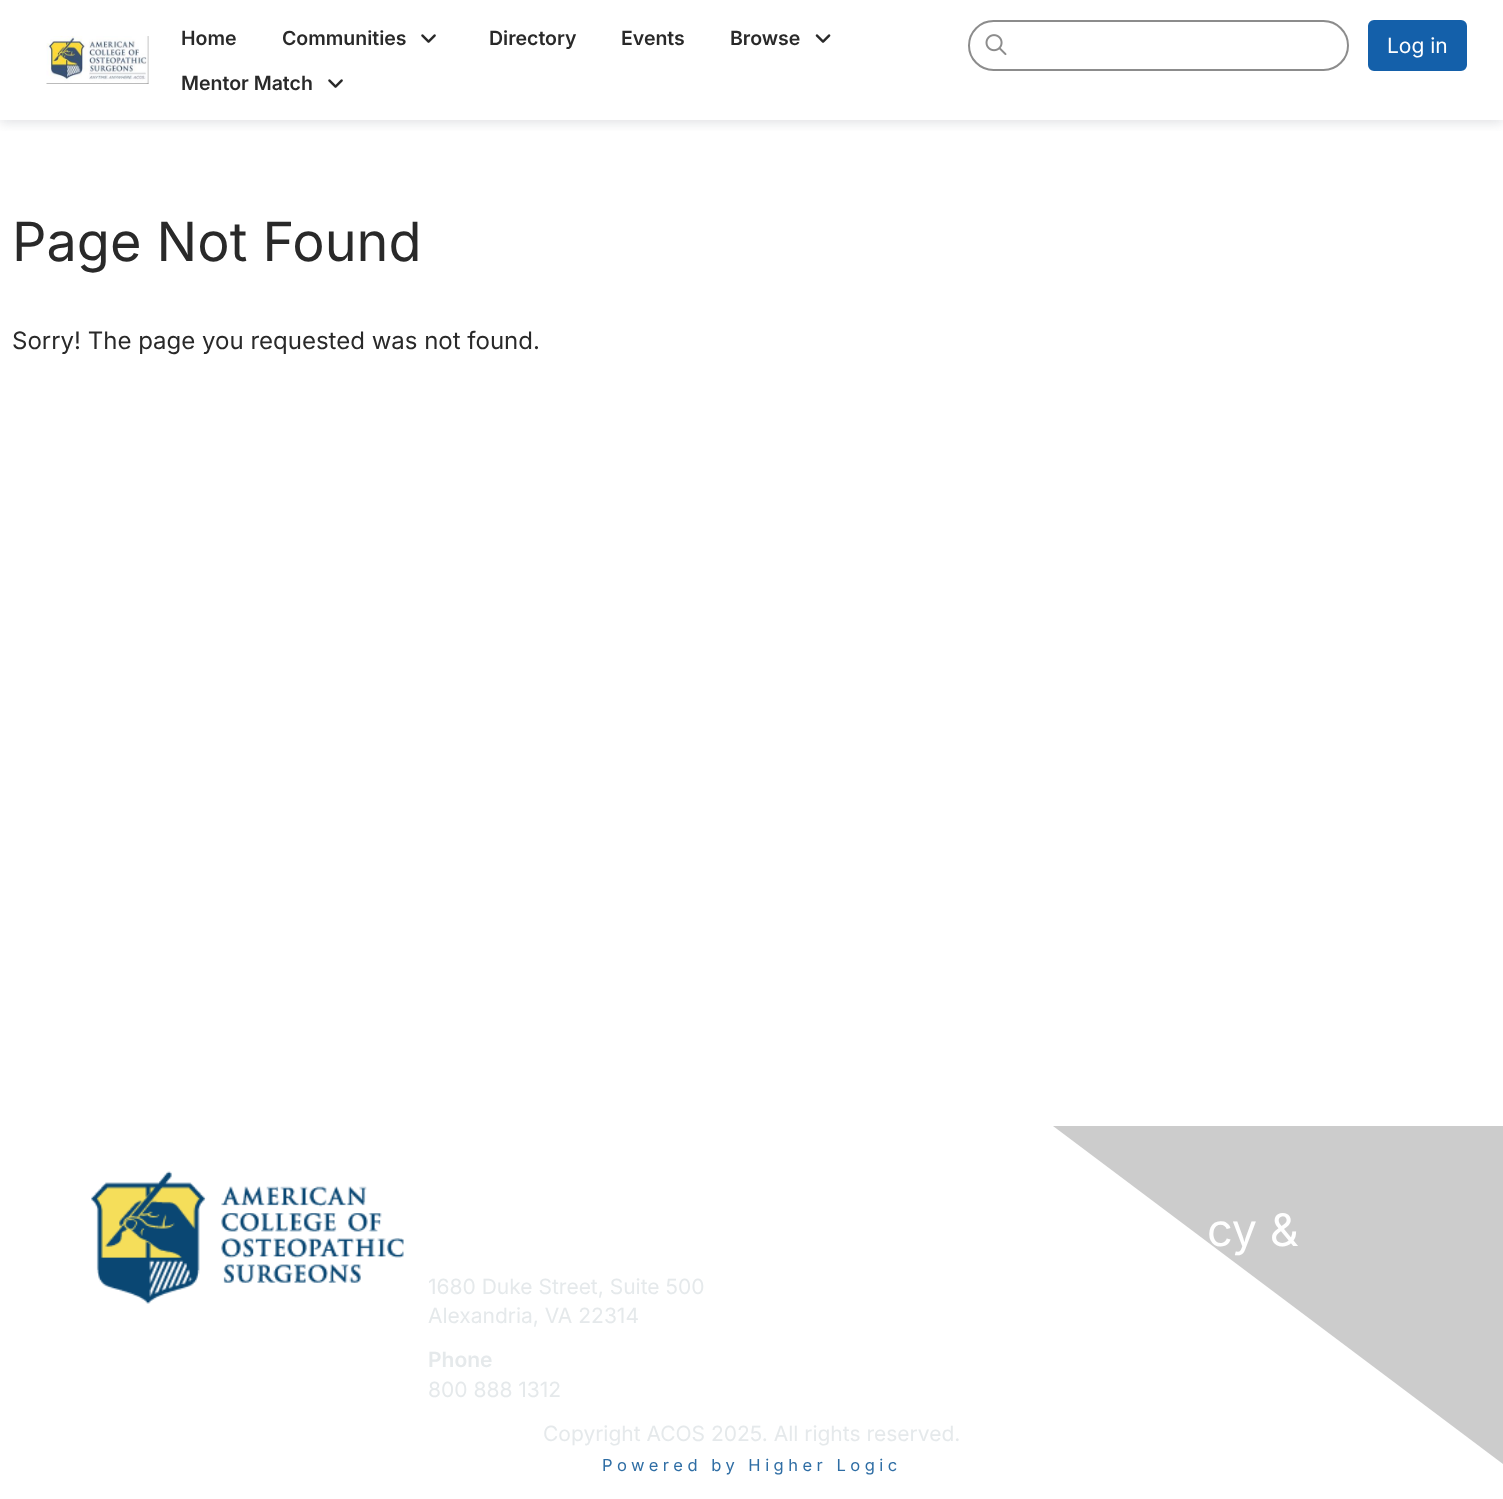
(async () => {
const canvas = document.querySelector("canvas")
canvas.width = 1503
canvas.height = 1499
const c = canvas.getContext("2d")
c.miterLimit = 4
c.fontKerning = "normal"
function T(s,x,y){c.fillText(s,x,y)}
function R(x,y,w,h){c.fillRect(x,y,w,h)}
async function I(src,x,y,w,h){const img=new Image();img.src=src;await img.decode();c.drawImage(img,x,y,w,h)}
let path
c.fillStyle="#fff"
R(0,0,1503,1499)
c.save()
c.beginPath()
c.rect(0,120,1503,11)
c.clip()
c.fillStyle="#8387913d"
c.filter="blur(6px)"
c.beginPath()
c.rect(0,3,1503,120)
c.fill()
c.filter="none"
c.restore()
await I("1.png",46,36,103,48)
c.font="600 19.5px Inter"
c.fillStyle="#292929"
T("Home",181,45)
T("Communities",282,45)
await I("2.png",421,34,15,9)
T("Directory",489,45)
T("Events",621,45)
T("Browse",730,45)
await I("3.png",815,34,16,9)
T("Mentor Match",181,90)
await I("2.png",328,79,15,9)
c.fillStyle="#ececec"
path = new Path2D("M993 22h330c13 0 24 11 24 24c0-14-11-25-24-25h-330c-13 0-24 11-24 25c0-13 11-24 24-24z")
c.fill(path)
c.beginPath()
c.roundRect(969,21,379,49,24.5)
c.strokeStyle="#8c8c8c"
c.lineWidth=2
c.stroke()
await I("4.png",985,34,22,22)
c.fillStyle="#1460aa"
c.beginPath()
c.roundRect(1369,21,97,49,5)
c.fill()
c.strokeStyle="#1460aa"
c.stroke()
c.font="21px Inter"
c.fillStyle="#fff"
T("Log in",1387,53)
c.font="54px Inter"
c.fillStyle="#292929"
T("Page Not Found",12,261)
c.font="24px Inter"
T("Sorry! The page you requested was not found.",12,349)
c.fillStyle="#ccc"
path = new Path2D("M1503 1126v338l-450-338z")
c.fill(path)
await I("5.png",91,1171,313,133)
c.font="45px Inter"
c.fillStyle="#fff"
T("cy &",1207,1246)
c.font="21px Inter"
c.fillStyle="#e5e9eb"
T("1680 Duke Street, Suite 500",428,1294)
T("Alexandria, VA 22314",428,1323)
c.font="600 21px Inter"
T("Phone",428,1367)
c.font="21px Inter"
T("800 888 1312",428,1397)
T("Copyright ACOS 2025. All rights reserved.",543,1441)
c.letterSpacing="4.5px"
c.font="16.5px Inter"
c.fillStyle="#2e6da4"
T("Powered by Higher Logic",602,1471)
})()
